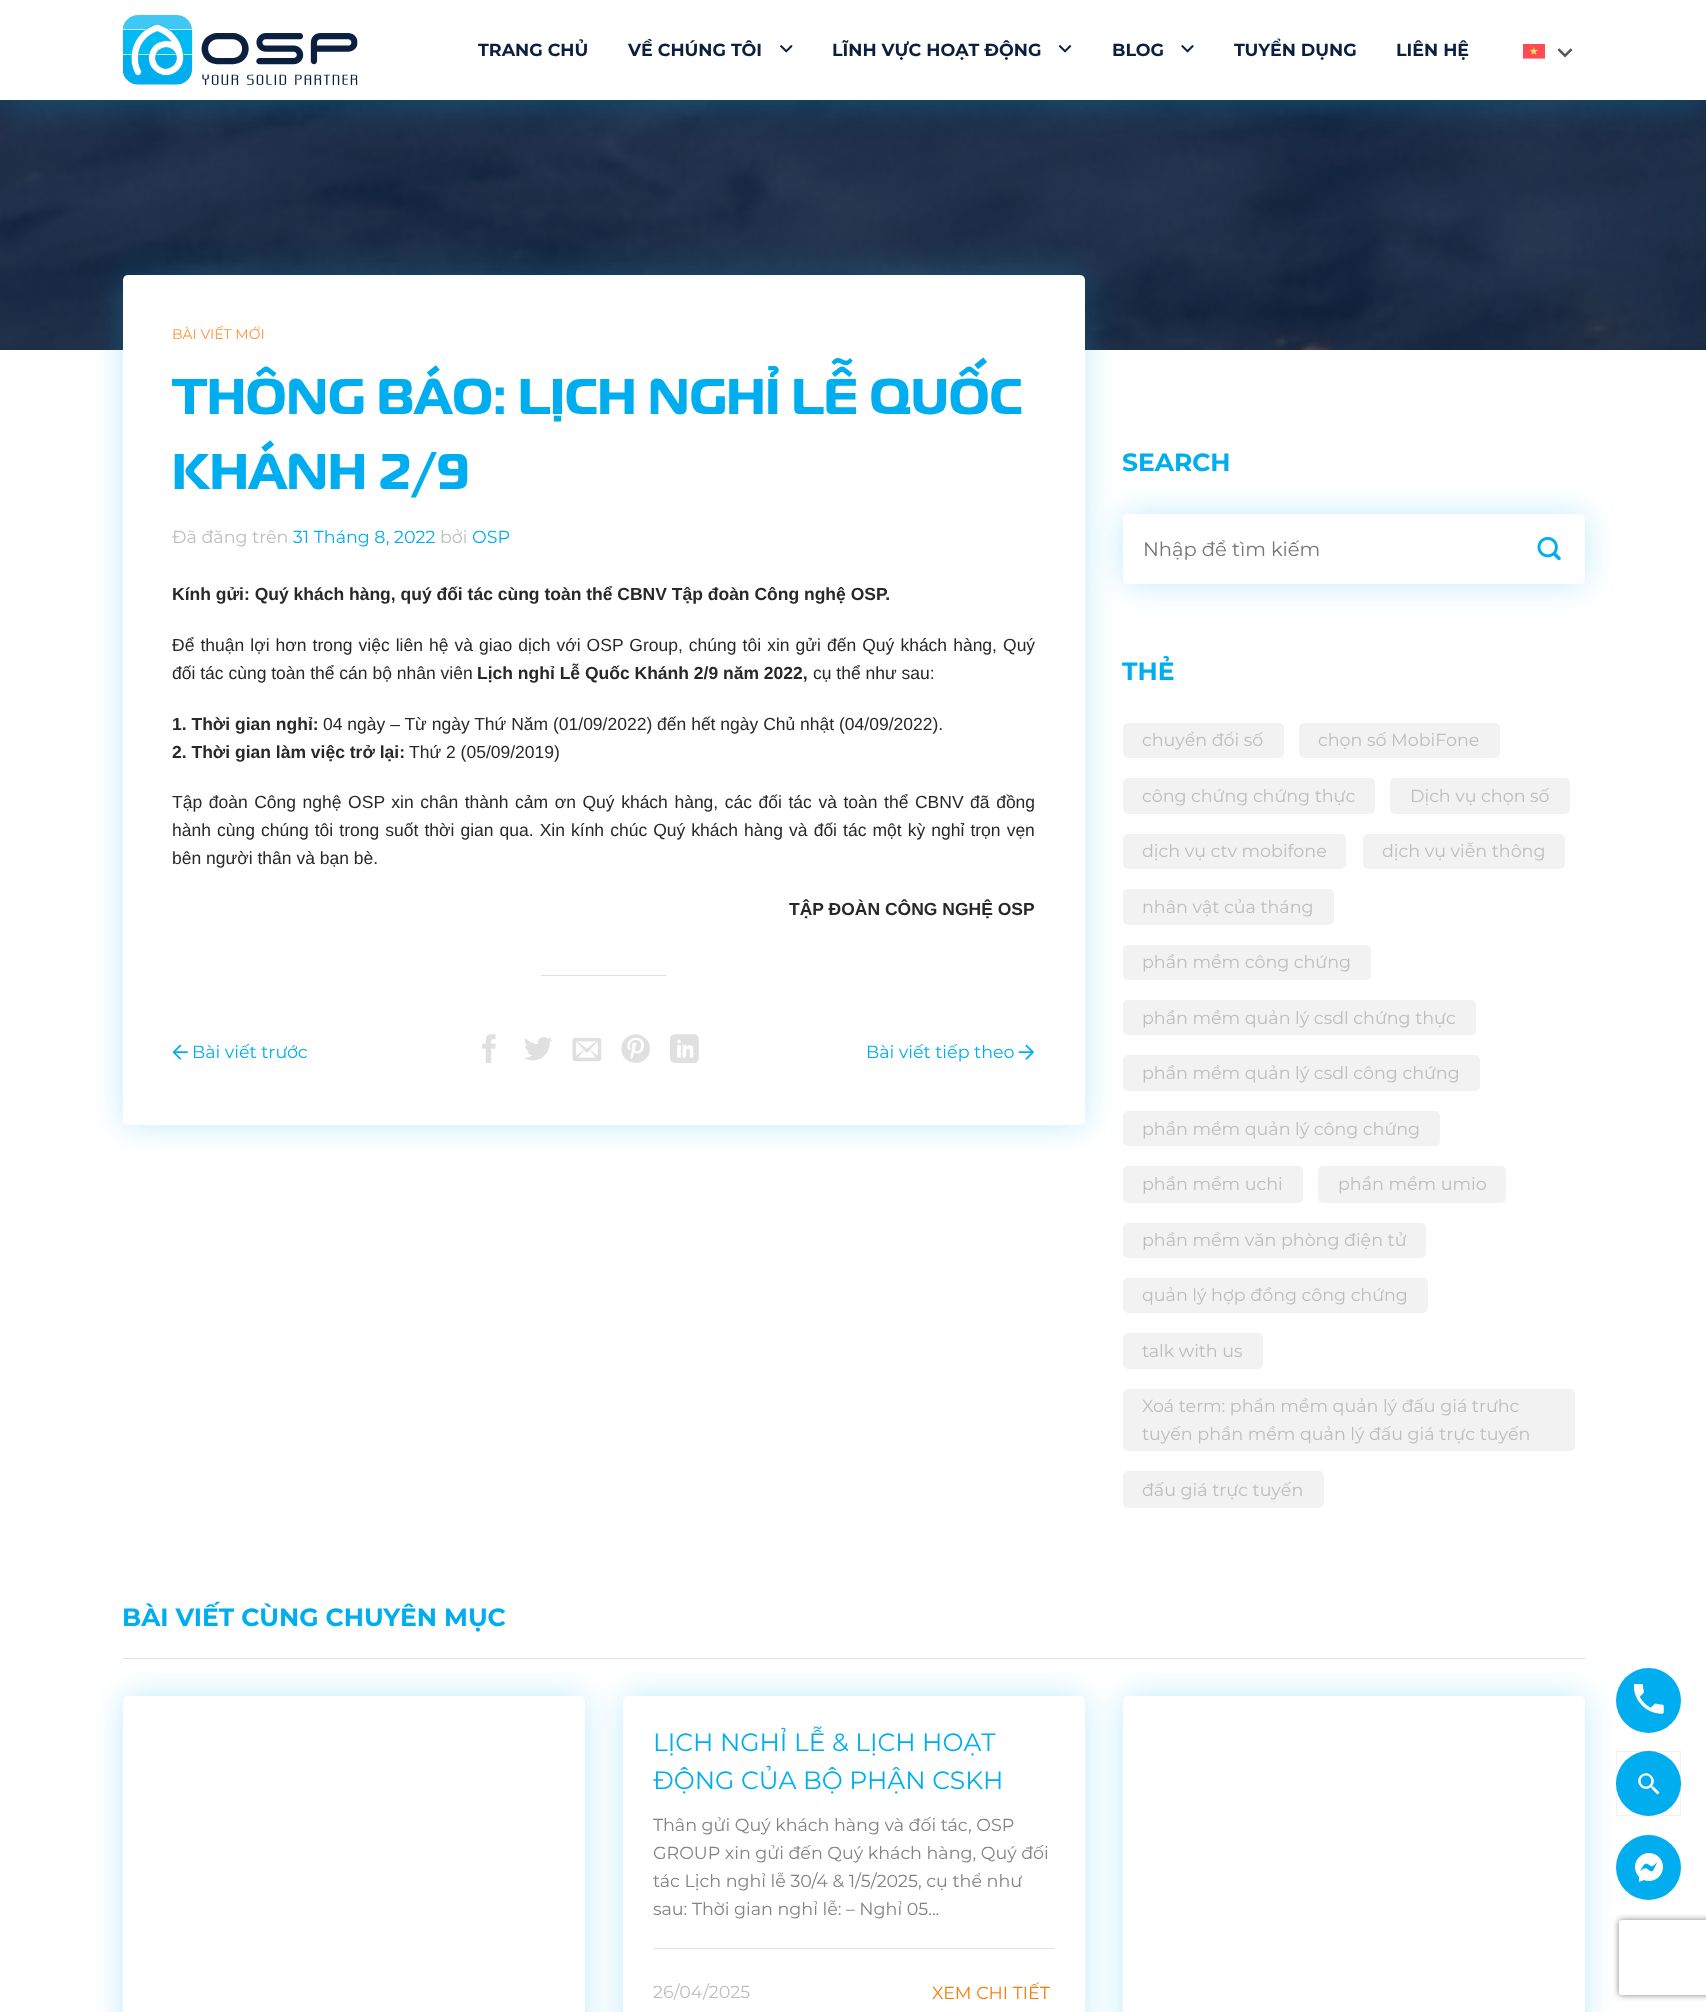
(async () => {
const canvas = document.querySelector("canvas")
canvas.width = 1706
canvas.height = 2012
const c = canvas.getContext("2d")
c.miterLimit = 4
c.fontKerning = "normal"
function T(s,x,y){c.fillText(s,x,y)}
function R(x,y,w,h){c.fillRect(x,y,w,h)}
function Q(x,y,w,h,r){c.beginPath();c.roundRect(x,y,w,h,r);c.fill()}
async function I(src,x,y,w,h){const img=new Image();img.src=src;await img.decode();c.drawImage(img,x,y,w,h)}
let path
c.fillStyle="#fff"
R(0,0,1706,2012)
await I("7.png",0,100,1706,250)
c.fillStyle="#00aeef40"
c.filter="blur(15.5px)"
c.beginPath()
c.rect(0,5,1706,100)
c.fill()
c.filter="none"
c.fillStyle="#fff"
R(0,0,1706,100)
await I("1.png",123,15,235,70)
c.font="bold 17.5px Montserrat"
c.fillStyle="#0b203f"
T("TRANG CHỦ",478,56)
T("VỀ CHÚNG TÔI",628,56)
await I("2.png",780,45,13,8)
T("LĨNH VỰC HOẠT ĐỘNG",832,56)
await I("3.png",1058,45,14,8)
T("BLOG",1112,56)
await I("4.png",1181,45,13,8)
T("TUYỂN DỤNG",1234,56)
T("LIÊN HỆ",1396,56)
await I("5.png",1523,44,22,15)
await I("6.png",1558,48,15,10)
c.fillStyle="#00aeef40"
c.filter="blur(15.5px)"
c.beginPath()
c.roundRect(123,275,962,850,5)
c.fill()
c.filter="none"
c.fillStyle="#fff"
Q(123,275,962,850,5)
c.font="14px Montserrat"
c.fillStyle="#fb9639"
T("BÀI VIẾT MỚI",172,339)
c.font="bold 50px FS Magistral"
c.fillStyle="#00aeef"
T("THÔNG BÁO: LỊCH NGHỈ LỄ QUỐC",172,414)
T("KHÁNH 2/9",172,489)
c.font="17.5px Montserrat"
c.fillStyle="#bdbdbd"
T("Đã đăng trên",172,543)
c.fillStyle="#00aeef"
T("31 Tháng 8, 2022",293,543)
c.fillStyle="#bdbdbd"
T("bởi",440,543)
c.fillStyle="#00aeef"
T("OSP",472,543)
c.font="bold 17.5px Liberation Sans"
c.fillStyle="#282828"
T("Kính gửi: Quý khách hàng, quý đối tác cùng toàn thể CBNV Tập đoàn Công nghệ OSP.",172,600)
c.wordSpacing="1.2px"
c.font="17.5px Liberation Sans"
T("Để thuận lợi hơn trong việc liên hệ và giao dịch với OSP Group, chúng tôi xin gửi đến Quý khách hàng, Quý",172,651)
c.wordSpacing="0px"
T("đối tác cùng toàn thể cán bộ nhân viên",172,679)
c.font="bold 17.5px Liberation Sans"
T("Lịch nghỉ Lễ Quốc Khánh 2/9 năm 2022,",477,679)
c.font="17.5px Liberation Sans"
T("cụ thể như sau:",813,679)
c.font="bold 17.5px Liberation Sans"
T("1. Thời gian nghỉ:",172,730)
c.font="17.5px Liberation Sans"
T("04 ngày – Từ ngày Thứ Năm (01/09/2022) đến hết ngày Chủ nhật (04/09/2022).",323,730)
c.font="bold 17.5px Liberation Sans"
T("2. Thời gian làm việc trở lại:",172,758)
c.font="17.5px Liberation Sans"
T("Thứ 2 (05/09/2019)",409,758)
c.wordSpacing="1.7px"
T("Tập đoàn Công nghệ OSP xin chân thành cảm ơn Quý khách hàng, các đối tác và toàn thể CBNV đã đồng",172,808)
c.wordSpacing="1.2px"
T("hành cùng chúng tôi trong suốt thời gian qua. Xin kính chúc Quý khách hàng và đối tác một kỳ nghỉ trọn vẹn",172,836)
c.wordSpacing="0px"
T("bên người thân và bạn bè.",172,864)
c.font="bold 17.5px Liberation Sans"
T("TẬP ĐOÀN CÔNG NGHỆ OSP",789,915)
c.fillStyle="#e0e0e0"
R(541,975,125,1)
await I("8.png",172,1044,16,16)
c.font="17.5px Montserrat"
c.fillStyle="#00aeef"
T("Bài viết trước",192,1058)
await I("9.png",482,1034,14,29)
await I("10.png",524,1037,28,24)
await I("11.png",572,1037,30,25)
await I("12.png",621,1034,29,29)
await I("13.png",670,1034,29,29)
T("Bài viết tiếp theo",866,1058)
await I("14.png",1018,1044,16,16)
c.font="bold 25px Montserrat"
T("SEARCH",1122,471)
c.fillStyle="#00aeef40"
c.filter="blur(15.5px)"
c.beginPath()
c.roundRect(1123,514,462,70,5)
c.fill()
c.filter="none"
c.fillStyle="#fff"
Q(1123,514,462,70,5)
c.font="19.5px Montserrat"
c.fillStyle="#757575"
T("Nhập để tìm kiếm",1143,556)
await I("15.png",1537,536,24,25)
c.font="bold 25px Montserrat"
c.fillStyle="#00aeef"
T("THẺ",1122,680)
c.fillStyle="#f2f2f2"
Q(1123,723,161,35,5)
c.font="17.5px Montserrat"
c.fillStyle="#bdbdbd"
T("chuyển đổi số",1142,746)
c.fillStyle="#f2f2f2"
Q(1299,723,201,35,5)
c.fillStyle="#bdbdbd"
T("chọn số MobiFone",1318,746)
c.fillStyle="#f2f2f2"
Q(1123,778,252,36,5)
c.fillStyle="#bdbdbd"
T("công chứng chứng thực",1142,802)
c.fillStyle="#f2f2f2"
Q(1390,778,180,36,5)
c.fillStyle="#bdbdbd"
T("Dịch vụ chọn số",1410,802)
c.fillStyle="#f2f2f2"
Q(1123,834,223,35,5)
c.fillStyle="#bdbdbd"
T("dịch vụ ctv mobifone",1142,857)
c.fillStyle="#f2f2f2"
Q(1363,834,202,35,5)
c.fillStyle="#bdbdbd"
T("dịch vụ viễn thông",1382,857)
c.fillStyle="#f2f2f2"
Q(1123,889,211,36,5)
c.fillStyle="#bdbdbd"
T("nhân vật của tháng",1142,913)
c.fillStyle="#f2f2f2"
Q(1123,945,248,35,5)
c.fillStyle="#bdbdbd"
T("phần mềm công chứng",1142,968)
c.fillStyle="#f2f2f2"
Q(1123,1000,353,35,5)
c.fillStyle="#bdbdbd"
T("phần mềm quản lý csdl chứng thực",1142,1024)
c.fillStyle="#f2f2f2"
Q(1123,1055,357,36,5)
c.fillStyle="#bdbdbd"
T("phần mềm quản lý csdl công chứng",1142,1079)
c.fillStyle="#f2f2f2"
Q(1123,1111,317,35,5)
c.fillStyle="#bdbdbd"
T("phần mềm quản lý công chứng",1142,1135)
c.fillStyle="#f2f2f2"
Q(1123,1166,180,37,5)
c.fillStyle="#bdbdbd"
T("phần mềm uchi",1142,1190)
c.fillStyle="#f2f2f2"
Q(1318,1166,188,37,5)
c.fillStyle="#bdbdbd"
T("phần mềm umio",1338,1190)
c.fillStyle="#f2f2f2"
Q(1123,1223,303,35,5)
c.fillStyle="#bdbdbd"
T("phần mềm văn phòng điện tử",1142,1246)
c.fillStyle="#f2f2f2"
Q(1123,1278,305,35,5)
c.fillStyle="#bdbdbd"
T("quản lý hợp đồng công chứng",1142,1301)
c.fillStyle="#f2f2f2"
Q(1123,1333,140,36,5)
c.fillStyle="#bdbdbd"
T("talk with us",1142,1357)
c.fillStyle="#f2f2f2"
Q(1123,1389,452,62,5)
c.fillStyle="#bdbdbd"
T("Xoá term: phần mềm quản lý đấu giá trưhc",1142,1412)
T("tuyến phần mềm quản lý đấu giá trực tuyến",1142,1440)
c.fillStyle="#f2f2f2"
Q(1123,1471,201,37,5)
c.fillStyle="#bdbdbd"
T("đấu giá trực tuyến",1142,1496)
c.fillStyle="#e0e0e0"
R(123,1658,1462,1)
c.font="bold 25px Montserrat"
c.fillStyle="#00aeef"
T("BÀI VIẾT CÙNG CHUYÊN MỤC",122,1626)
c.fillStyle="#00aeef40"
c.filter="blur(15.5px)"
c.beginPath()
c.roundRect(123,1696,462,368,5)
c.fill()
c.filter="none"
c.fillStyle="#fff"
Q(123,1696,462,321,5)
c.fillStyle="#00aeef40"
c.filter="blur(15.5px)"
c.beginPath()
c.roundRect(623,1696,462,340,5)
c.fill()
c.filter="none"
c.fillStyle="#fff"
Q(623,1696,462,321,5)
c.font="25px Montserrat"
c.fillStyle="#00aeef"
T("LỊCH NGHỈ LỄ & LỊCH HOẠT",653,1751)
T("ĐỘNG CỦA BỘ PHẬN CSKH",653,1789)
c.font="17.5px Montserrat"
c.fillStyle="#828282"
T("Thân gửi Quý khách hàng và đối tác, OSP",653,1831)
T("GROUP xin gửi đến Quý khách hàng, Quý đối",653,1859)
T("tác Lịch nghỉ lễ 30/4 & 1/5/2025, cụ thể như",653,1887)
T("sau: Thời gian nghỉ lễ: – Nghỉ 05...",653,1915)
c.fillStyle="#e0e0e0"
R(654,1948,400,1)
c.fillStyle="#bdbdbd"
T("26/04/2025",653,1998)
c.fillStyle="#fa7c08"
T("XEM CHI TIẾT",932,1999)
c.fillStyle="#00aeef40"
c.filter="blur(15.5px)"
c.beginPath()
c.roundRect(1123,1696,462,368,5)
c.fill()
c.filter="none"
c.fillStyle="#fff"
Q(1123,1696,462,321,5)
c.fillStyle="#00aeef"
c.beginPath()
c.arc(1648.5,1700.5,32.5,0,7)
c.fill()
await I("16.png",1634,1684,30,30)
c.beginPath()
c.arc(1648.5,1783.5,32.5,0,7)
c.fill()
c.fillStyle="#fff"
path = new Path2D("M1653.5 1786.5h-1l-.5-.5c6.5-7-4.5-17.5-11.5-10.5c-7 7 3.5 18 10.5 11.5l.5 .5v1l6 6l2-2zm-7.5 0c-7 0-7-11 0-11c7 0 7 11 0 11z")
c.fill(path)
c.strokeStyle="#0000000d"
c.strokeRect(1616.5,1751.5,64,64)
c.fillStyle="#00aeef"
c.beginPath()
c.arc(1648.5,1867.5,32.5,0,7)
c.fill()
await I("17.png",1635,1853,28,29)
c.save()
path = new Path2D("M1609 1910h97v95h-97zm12.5 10h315c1.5 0 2.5 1 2.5 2.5v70c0 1.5-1 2.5-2.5 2.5h-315c-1.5 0-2.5-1-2.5-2.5v-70c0-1.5 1-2.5 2.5-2.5z")
c.clip(path,"evenodd")
c.fillStyle="#808080"
c.filter="blur(3px)"
c.beginPath()
c.roundRect(1619,1920,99,75,2.5)
c.fill()
c.filter="none"
c.restore()
})()
